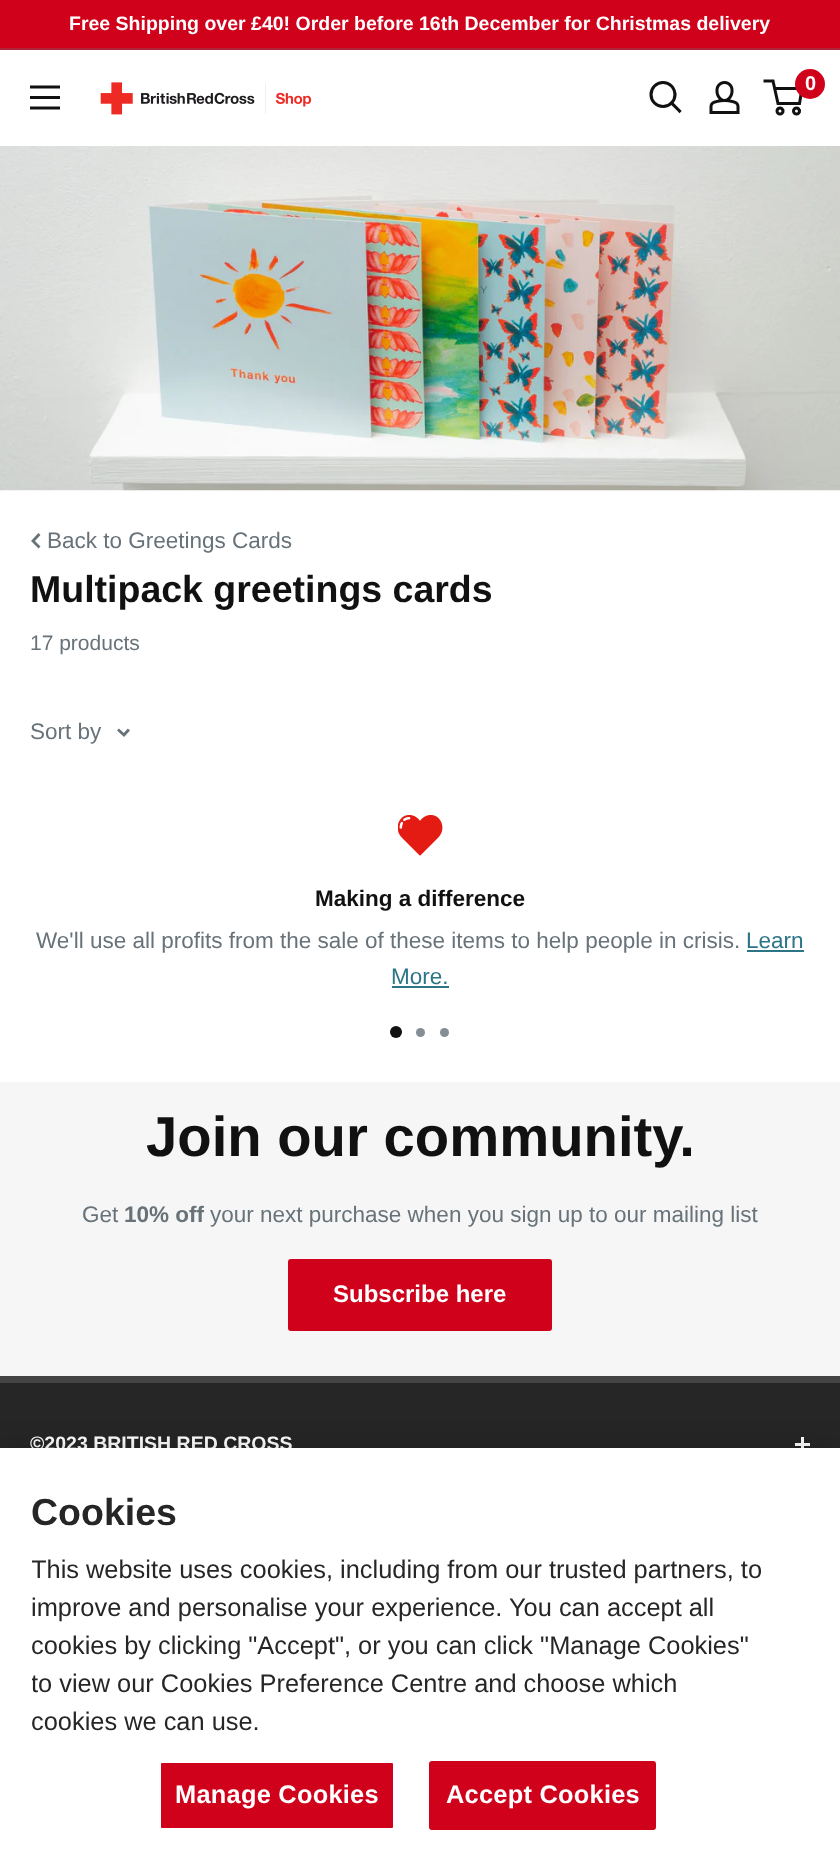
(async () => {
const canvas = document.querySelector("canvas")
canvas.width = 840
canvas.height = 1852
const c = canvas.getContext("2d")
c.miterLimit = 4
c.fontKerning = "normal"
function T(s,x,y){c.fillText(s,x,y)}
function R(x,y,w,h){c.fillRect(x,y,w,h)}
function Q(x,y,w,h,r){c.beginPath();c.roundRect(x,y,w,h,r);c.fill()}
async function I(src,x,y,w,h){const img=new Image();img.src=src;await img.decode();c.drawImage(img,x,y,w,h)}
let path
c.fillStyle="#fff"
R(0,0,840,1852)
c.fillStyle="#d0021b"
R(0,0,840,48)
c.fillStyle="#b02437"
R(0,48,840,2)
c.font="bold 19.5px Liberation Sans"
c.fillStyle="#fff"
T("Free Shipping over £40! Order before 16th December for Christmas delivery",69,30)
await I("1.png",30,85,30,25)
await I("2.png",100,82,212,33)
path = new Path2D("M679.5 111l-8-8")
c.strokeStyle="#111"
c.lineWidth=3.1
c.lineCap="square"
c.stroke(path)
c.beginPath()
c.arc(663,94.5,12,0,7)
c.stroke()
await I("3.png",709,81,31,33)
c.beginPath()
c.arc(780,111,3,0,7)
c.lineWidth=3
c.stroke()
c.beginPath()
c.arc(796.5,111,3,0,7)
c.stroke()
path = new Path2D("M774.5 88.5h27.5l-2.5 15h-21.5l-5-22.5h-9.5")
c.lineCap="butt"
c.stroke(path)
c.fillStyle="#d0021b"
c.beginPath()
c.arc(810,84,15,0,7)
c.fill()
c.font="bold 20px Liberation Sans"
c.fillStyle="#fff"
T("0",805,90)
await I("4.png",0,146,840,345)
path = new Path2D("M38.5 546.5l-5.5-5.5l5.5-6")
c.strokeStyle="#677279"
c.lineWidth=2.8
c.lineCap="square"
c.stroke(path)
c.font="22.5px Liberation Sans"
c.fillStyle="#677279"
T("Back to Greetings Cards",47,548)
c.font="bold 37.5px Liberation Sans"
c.fillStyle="#111"
T("Multipack greetings cards",30,602)
c.font="21px Liberation Sans"
c.fillStyle="#677279"
T("17 products",30,650)
c.font="22.5px Liberation Sans"
T("Sort by",30,739)
path = new Path2D("M128 730.5l-4 4.5l-5-4.5")
c.stroke(path)
await I("5.png",398,815,45,41)
c.font="bold 22.5px Liberation Sans"
c.fillStyle="#111"
T("Making a difference",315,906)
c.font="22.5px Liberation Sans"
c.fillStyle="#677279"
T("We'll use all profits from the sale of these items to help people in crisis.",36,948)
c.fillStyle="#2b7586"
T("Learn",746,948)
R(747,950,57,2)
T("More.",391,984)
R(392,986,57,2)
c.fillStyle="#111"
c.beginPath()
c.arc(396,1032,6,0,7)
c.fill()
c.fillStyle="#858e94"
c.beginPath()
c.arc(420.5,1032.5,4.5,0,7)
c.fill()
c.beginPath()
c.arc(444.5,1032.5,4.5,0,7)
c.fill()
c.fillStyle="#f6f6f6"
R(0,1082,840,294)
c.font="bold 56.25px Liberation Sans"
c.fillStyle="#111"
T("Join our community.",146,1156)
c.font="22.5px Liberation Sans"
c.fillStyle="#677279"
T("Get",82,1222)
c.font="bold 22.5px Liberation Sans"
T("10% off",124,1222)
c.font="22.5px Liberation Sans"
T("your next purchase when you sign up to our mailing list",210,1222)
c.fillStyle="#d0021b"
Q(288,1259,264,72,3)
c.font="bold 24px Liberation Sans"
c.fillStyle="#fff"
T("Subscribe here",333,1302)
c.fillStyle="#262626"
R(0,1383,840,65)
c.fillStyle="#444"
R(0,1376,840,7)
c.font="bold 19.5px Liberation Sans"
c.fillStyle="#fff"
T("©2023 BRITISH RED CROSS",30,1450)
R(801,1437,3,15)
R(795,1443,15,3)
c.fillStyle="#00000033"
c.filter="blur(13.5px)"
c.beginPath()
c.rect(0,1448,840,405)
c.fill()
c.filter="none"
c.fillStyle="#fff"
R(0,1448,840,404)
c.font="bold 37.5px Liberation Sans"
c.fillStyle="#262626"
T("Cookies",31,1525)
c.save()
c.beginPath()
c.rect(32,1487,735,255)
c.clip()
c.font="25.4px Liberation Sans"
T("This website uses cookies, including from our trusted partners, to",31,1578)
c.restore()
c.font="25.4px Liberation Sans"
T("improve and personalise your experience. You can accept all",31,1616)
T("cookies by clicking \"Accept\", or you can click \"Manage Cookies\"",31,1654)
c.save()
c.beginPath()
c.rect(32,1487,735,255)
c.clip()
T("to view our Cookies Preference Centre and choose which",31,1692)
c.restore()
T("cookies we can use.",31,1730)
c.fillStyle="#d0021b"
c.beginPath()
c.roundRect(160,1762,234,67,2)
c.fill()
c.strokeStyle="#fff"
c.lineWidth=2
c.stroke()
c.letterSpacing="0.25px"
c.font="bold 25.4px Liberation Sans"
c.fillStyle="#fff"
T("Manage Cookies",175,1803)
c.fillStyle="#d0021b"
c.beginPath()
c.roundRect(430,1762,225,67,2)
c.fill()
c.strokeStyle="#d0021b"
c.stroke()
c.fillStyle="#fff"
T("Accept Cookies",446,1803)
})()
